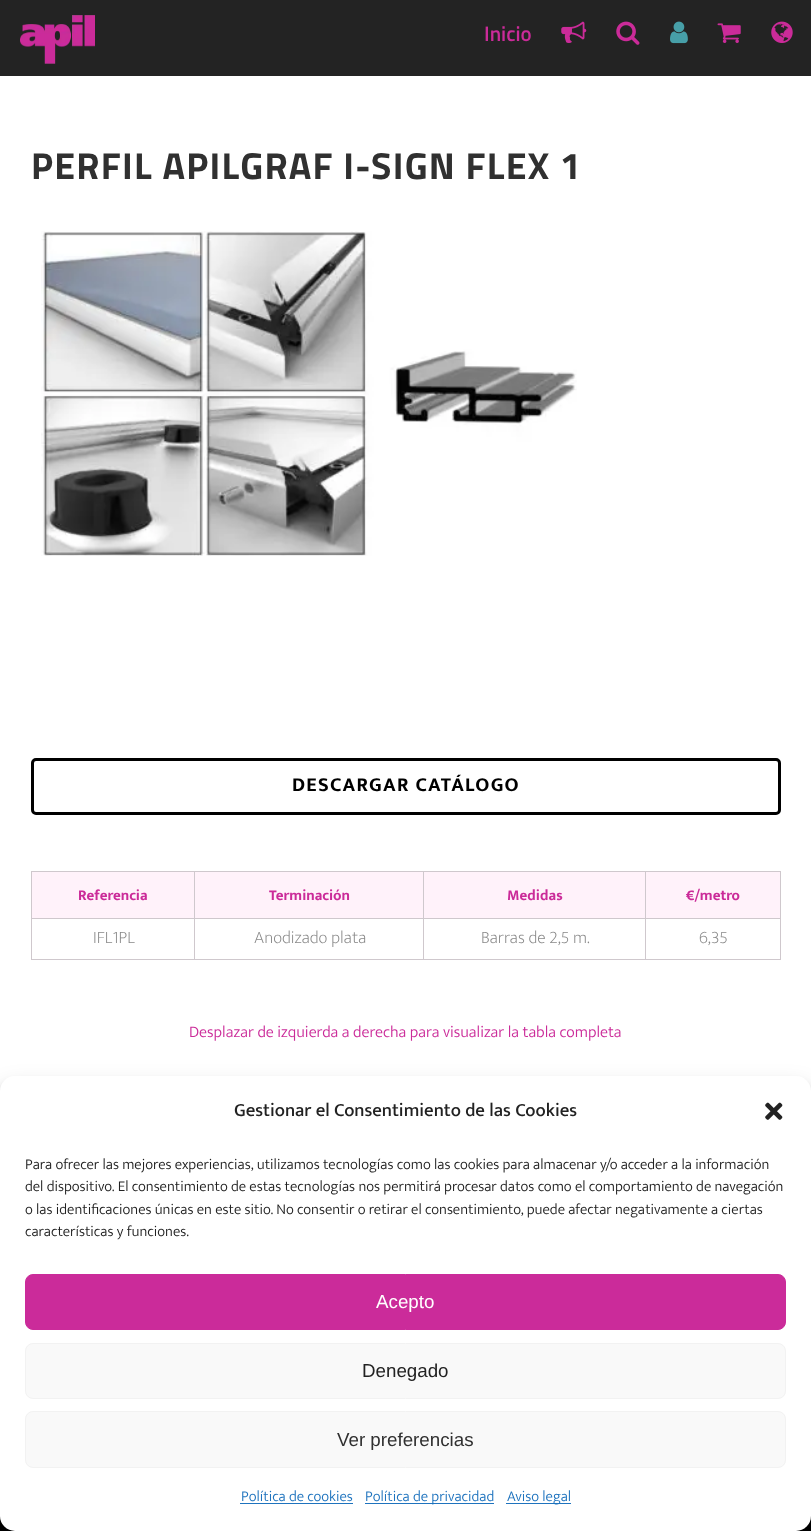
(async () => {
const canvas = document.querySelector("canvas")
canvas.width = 811
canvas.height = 1531
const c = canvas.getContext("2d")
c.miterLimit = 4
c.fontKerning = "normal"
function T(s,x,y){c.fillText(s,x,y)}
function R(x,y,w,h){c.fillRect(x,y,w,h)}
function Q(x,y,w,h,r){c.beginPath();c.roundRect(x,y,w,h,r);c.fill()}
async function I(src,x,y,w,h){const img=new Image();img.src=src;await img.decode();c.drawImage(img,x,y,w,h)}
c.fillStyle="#fff"
R(0,0,811,1531)
c.fillStyle="#232323"
R(0,0,811,76)
await I("1.png",20,15,75,49)
c.font="600 21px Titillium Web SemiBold"
c.fillStyle="#cb2b99"
T("Inicio",484,41)
await I("2.png",561,21,26,22)
await I("3.png",616,21,24,24)
await I("4.png",670,21,18,23)
await I("5.png",717,23,24,20)
await I("6.png",771,21,22,22)
c.letterSpacing="1.25px"
c.font="bold 37.5px Titillium Web"
c.fillStyle="#303030"
T("PERFIL APILGRAF I-SIGN FLEX 1",31,179)
await I("7.png",41,231,536,325)
c.beginPath()
c.roundRect(32.5,759.5,747,54,3.5)
c.strokeStyle="#000"
c.lineWidth=3
c.stroke()
c.font="bold 20px Mukta"
c.fillStyle="#000"
T("DESCARGAR CATÁLOGO",292,791)
c.fillStyle="#fff2fa"
R(32,872,162,46)
c.fillStyle="#cfc8cd"
R(645,871,136,1)
R(645,918,136,1)
R(780,918,1,42)
R(645,959,136,1)
R(645,918,1,42)
R(423,918,223,1)
R(645,871,1,48)
R(423,871,223,1)
R(423,959,223,1)
R(423,918,1,42)
R(194,918,230,1)
R(423,871,1,48)
R(194,871,230,1)
R(194,959,230,1)
R(194,918,1,42)
R(31,918,164,1)
R(194,871,1,48)
R(31,871,164,1)
R(31,959,164,1)
R(31,918,1,42)
R(31,871,1,48)
c.letterSpacing="0px"
c.font="bold 15px Mukta"
c.fillStyle="#cb2b99"
T("Referencia",78,900)
c.fillStyle="#fff2fa"
R(195,872,228,46)
c.fillStyle="#cb2b99"
T("Terminación",269,900)
c.fillStyle="#fff2fa"
R(424,872,221,46)
c.fillStyle="#cb2b99"
T("Medidas",507,900)
c.fillStyle="#fff2fa"
R(646,872,134,46)
c.fillStyle="#cfc8cd"
R(780,871,1,48)
c.fillStyle="#cb2b99"
T("€/metro",686,900)
c.font="200 17.5px Mukta"
c.fillStyle="#888"
T("IFL1PL",93,943)
T("Anodizado plata",254,943)
T("Barras de 2,5 m.",481,943)
T("6,35",699,943)
c.font="300 16.25px Mukta"
c.fillStyle="#cb2b99"
T("Desplazar de izquierda a derecha para visualizar la tabla completa",189,1037)
c.fillStyle="#000"
R(0,1516,811,15)
c.fillStyle="#0000003b"
c.filter="blur(4px)"
c.beginPath()
c.roundRect(0,1084,811,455,15)
c.fill()
c.filter="none"
c.fillStyle="#00000030"
c.filter="blur(12.5px)"
c.beginPath()
c.roundRect(0,1089,811,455,15)
c.fill()
c.filter="none"
c.fillStyle="#fff"
Q(0,1076,811,455,15)
c.font="500 18.75px Mukta"
c.fillStyle="#222"
T("Gestionar el Consentimiento de las Cookies",234,1116)
await I("8.png",765,1102,18,18)
c.font="300 15px Mukta"
T("Para ofrecer las mejores experiencias, utilizamos tecnologías como las cookies para almacenar y/o acceder a la información",25,1169)
T("del dispositivo. El consentimiento de estas tecnologías nos permitirá procesar datos como el comportamiento de navegación",25,1191)
T("o las identificaciones únicas en este sitio. No consentir o retirar el consentimiento, puede afectar negativamente a ciertas",25,1214)
T("características y funciones.",25,1236)
c.fillStyle="#cb2b9a"
c.beginPath()
c.roundRect(25.5,1274.5,760,55,7.5)
c.fill()
c.strokeStyle="#cb2b9a"
c.lineWidth=1
c.stroke()
c.font="18.75px Liberation Sans"
c.fillStyle="#fff"
T("Acepto",376,1308)
c.fillStyle="#f9f9f9"
c.beginPath()
c.roundRect(25.5,1343.5,760,55,7.5)
c.fill()
c.strokeStyle="#f2f2f2"
c.stroke()
c.fillStyle="#222"
T("Denegado",362,1377)
c.fillStyle="#f9f9f9"
c.beginPath()
c.roundRect(25.5,1411.5,760,56,7.5)
c.fill()
c.stroke()
c.fillStyle="#303030"
T("Ver preferencias",337,1446)
c.font="300 15px Mukta"
c.fillStyle="#1e73be"
T("Política de cookies",241,1501)
R(240,1503,113,1)
R(365,1503,129,1)
T("Política de privacidad",365,1501)
R(506,1503,65,1)
T("Aviso legal",507,1501)
})()
